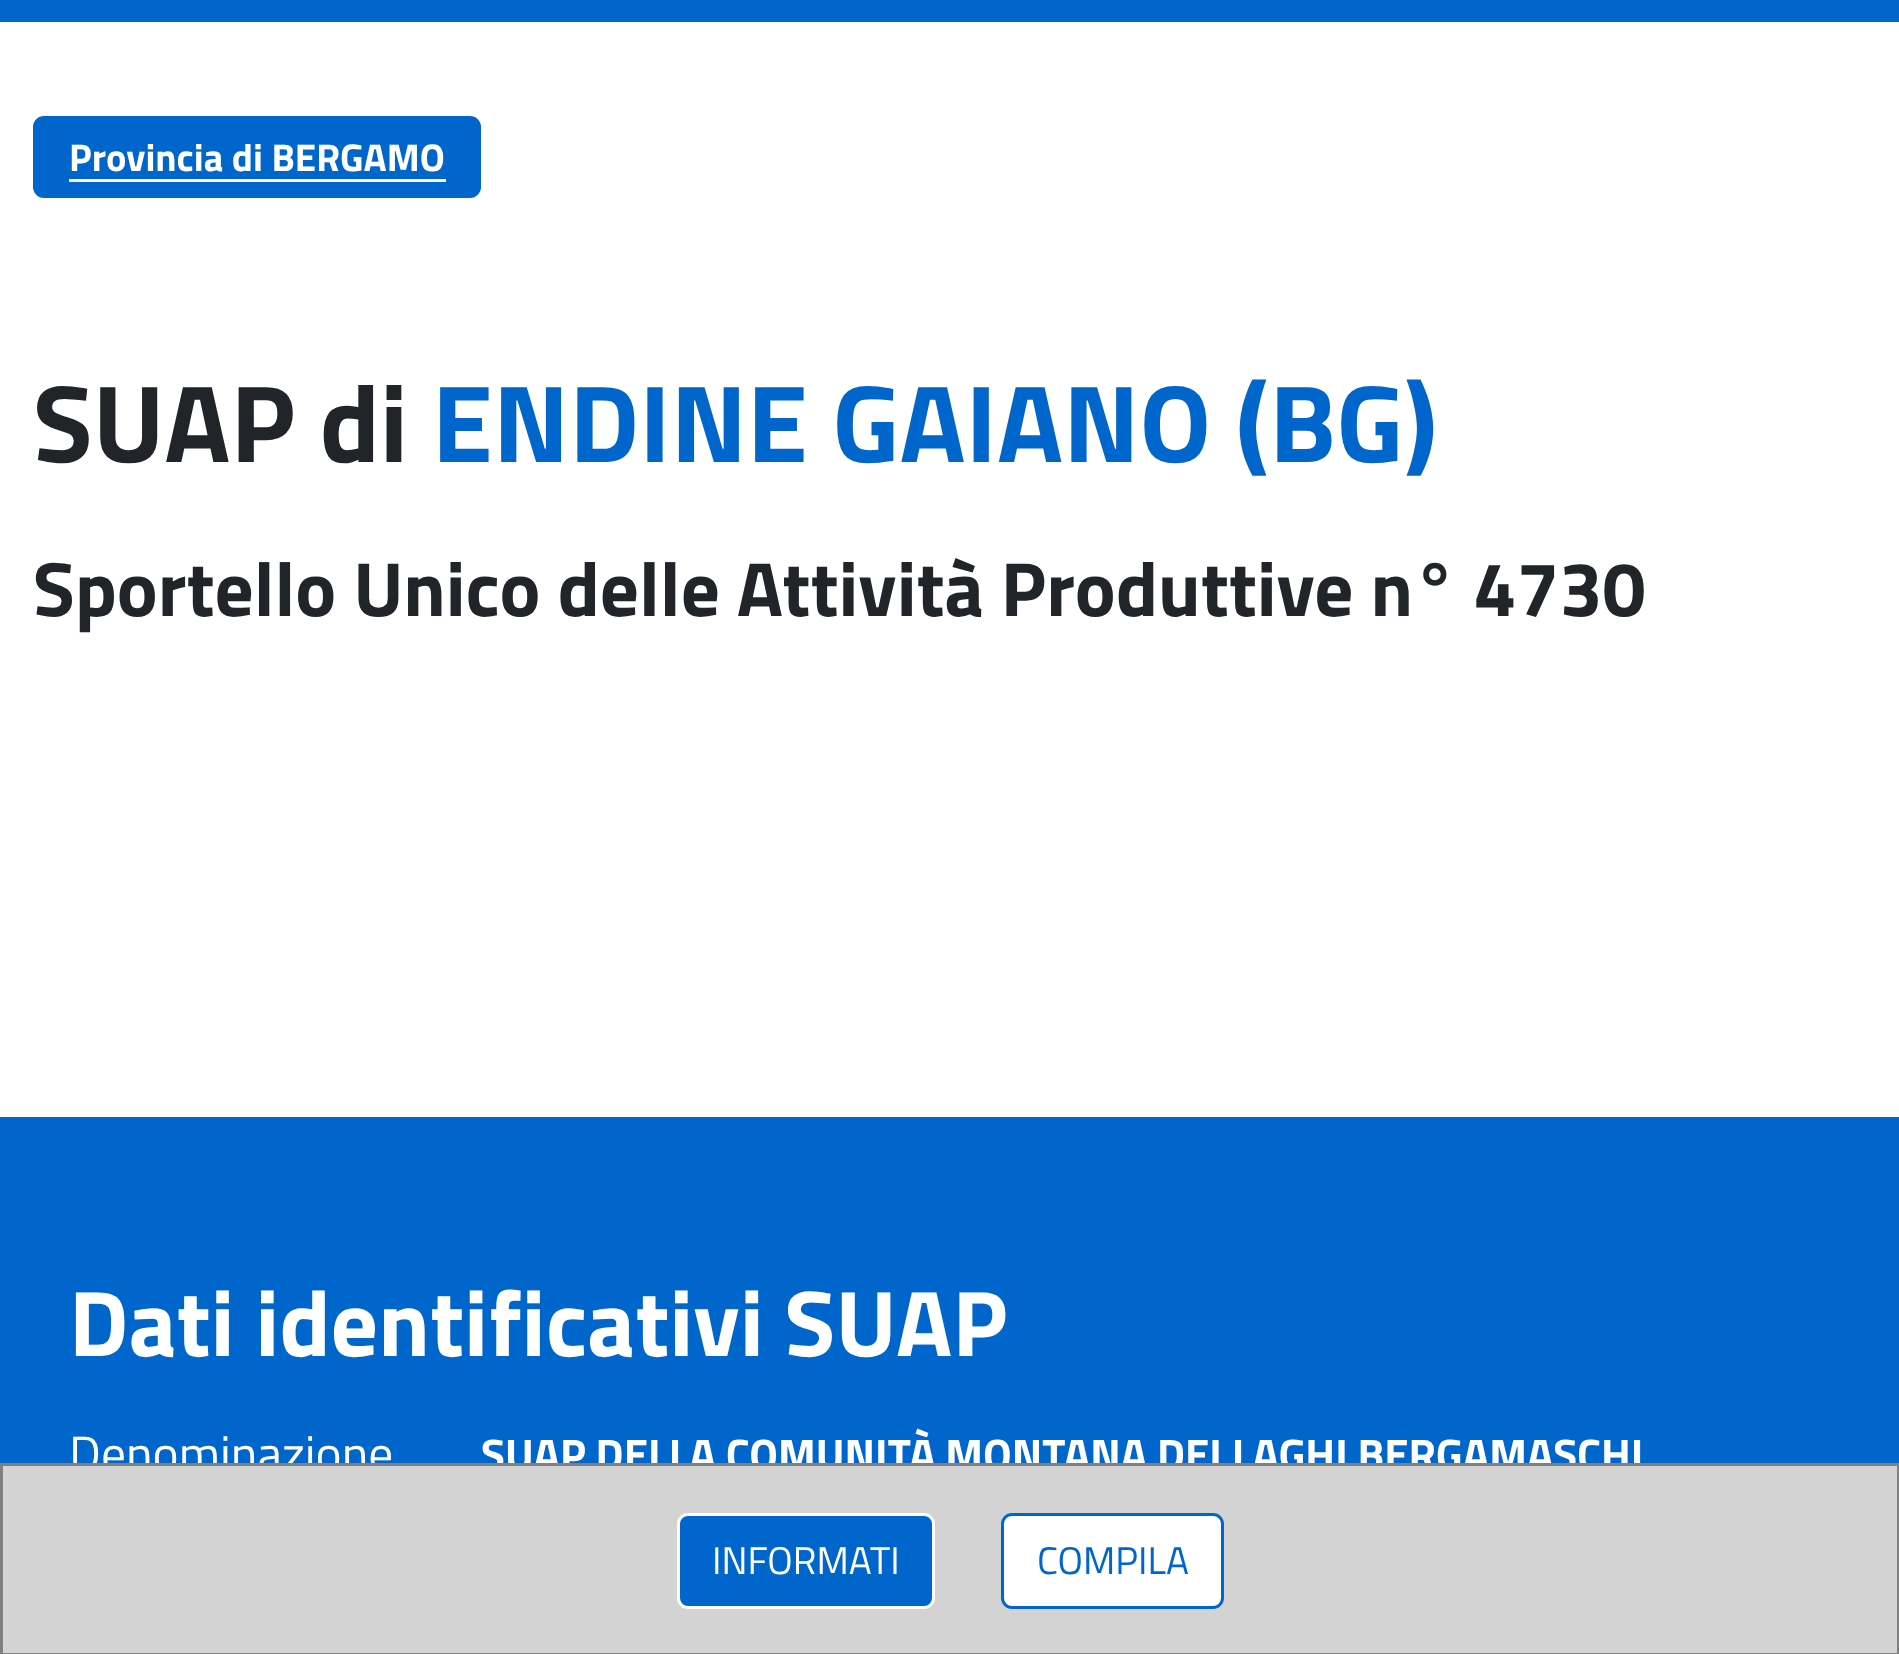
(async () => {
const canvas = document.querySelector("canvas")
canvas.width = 1899
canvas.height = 1654
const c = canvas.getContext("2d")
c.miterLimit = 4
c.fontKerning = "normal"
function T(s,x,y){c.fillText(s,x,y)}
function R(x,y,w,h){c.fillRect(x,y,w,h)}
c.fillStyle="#fff"
R(0,0,1899,1654)
c.fillStyle="#06c"
R(0,0,1899,22)
c.beginPath()
c.roundRect(34.5,117.5,445,79,9.5)
c.fill()
c.strokeStyle="#06c"
c.lineWidth=3
c.stroke()
c.font="bold 38.5px Titillium Web"
c.fillStyle="#fff"
T("Provincia di BERGAMO",69,171)
R(69,179,377,3)
c.font="bold 110px Titillium Web"
c.fillStyle="#212529"
T("SUAP di",33,462)
c.fillStyle="#06c"
T("ENDINE GAIANO (BG)",432,462)
c.font="bold 77px Titillium Web"
c.fillStyle="#212529"
T("Sportello Unico delle Attività Produttive n° 4730",33,616)
c.fillStyle="#06c"
R(0,1117,1899,346)
c.font="49.5px Titillium Web"
c.fillStyle="#fff"
T("Denominazione",69,1471)
c.font="bold 44px Titillium Web"
T("SUAP DELLA COMUNITÀ MONTANA DEI LAGHI BERGAMASCHI",481,1470)
c.fillStyle="#d3d3d3"
c.beginPath()
c.rect(1.5,1464.5,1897,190)
c.fill()
c.strokeStyle="#808080"
c.stroke()
c.fillStyle="#06c"
c.beginPath()
c.roundRect(678.5,1514.5,255,93,9.5)
c.fill()
c.strokeStyle="#fff"
c.stroke()
c.font="38.5px Titillium Web"
c.fillStyle="#fff"
T("INFORMATI",712,1574)
c.beginPath()
c.roundRect(1002.5,1514.5,220,93,9.5)
c.fill()
c.strokeStyle="#06c"
c.stroke()
c.fillStyle="#06c"
T("COMPILA",1037,1574)
c.font="bold 93.5px Titillium Web"
c.fillStyle="#fff"
T("Dati identificativi SUAP",69,1356)
})()
